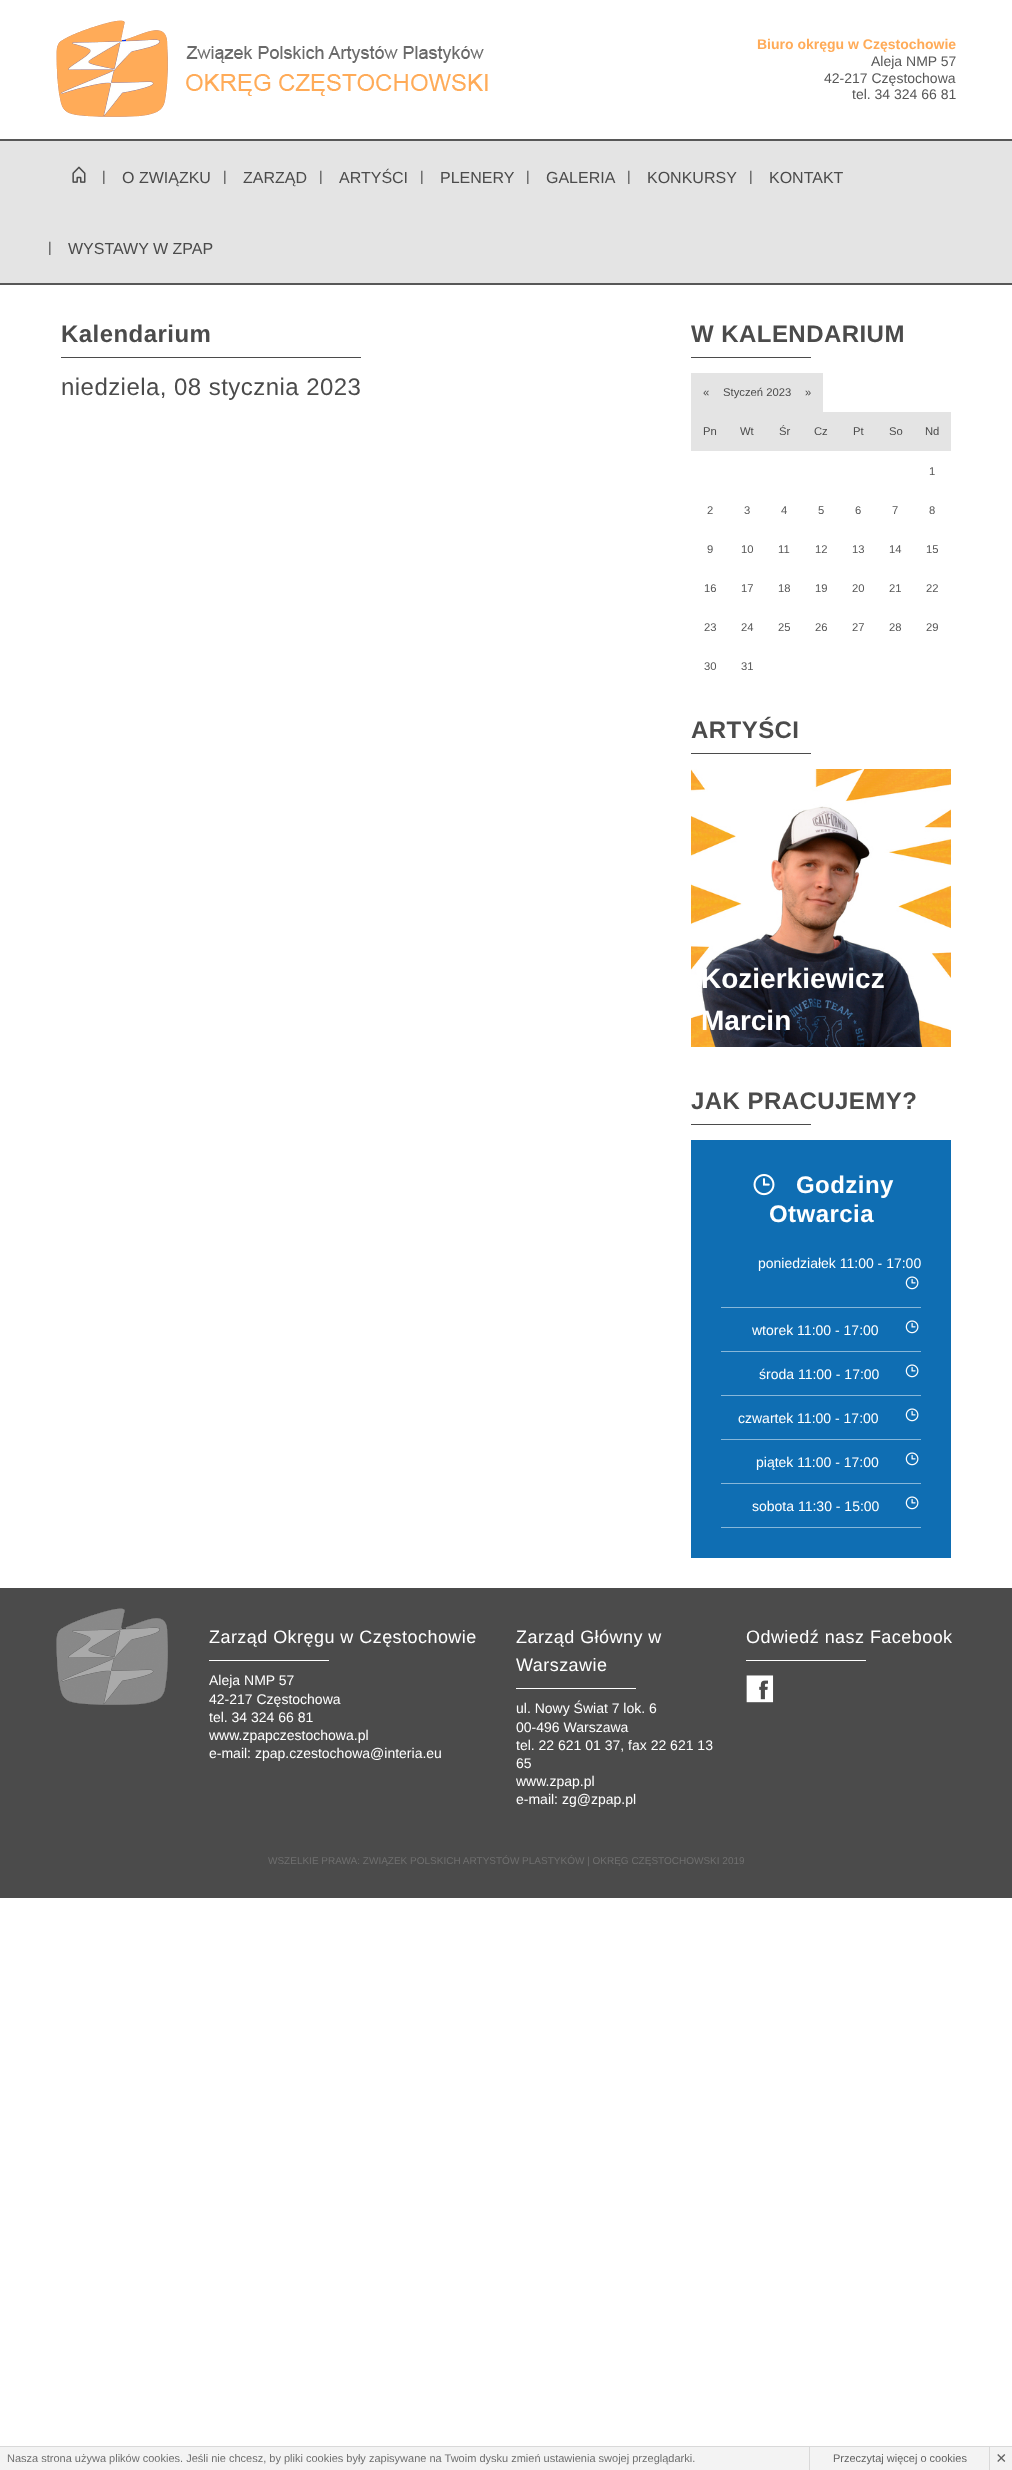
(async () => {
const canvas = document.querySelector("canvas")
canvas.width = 1012
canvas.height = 2470
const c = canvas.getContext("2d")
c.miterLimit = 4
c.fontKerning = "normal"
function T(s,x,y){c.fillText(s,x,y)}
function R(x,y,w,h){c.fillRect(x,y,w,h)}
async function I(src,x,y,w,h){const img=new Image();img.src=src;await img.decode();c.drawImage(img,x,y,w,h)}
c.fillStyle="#fff"
R(0,0,1012,2470)
await I("1.png",56,20,432,97)
c.font="bold 14px Liberation Sans"
c.fillStyle="#ffab58"
T("Biuro okręgu w Częstochowie",757,49)
c.font="14px Liberation Sans"
c.fillStyle="#575757"
T("Aleja NMP 57",871,66)
T("42-217 Częstochowa",824,83)
T("tel. 34 324 66 81",852,99)
c.fillStyle="#e4e4e4"
R(0,141,1012,142)
c.fillStyle="#575757"
R(0,139,1012,2)
R(0,283,1012,2)
await I("2.png",72,166,14,17)
c.fillStyle="#4b4b4b"
T("|",102,181)
c.font="16px Liberation Sans"
T("O ZWIĄZKU",122,183)
c.font="14px Liberation Sans"
T("|",223,181)
c.font="16px Liberation Sans"
T("ZARZĄD",243,183)
c.font="14px Liberation Sans"
T("|",319,181)
c.font="16px Liberation Sans"
T("ARTYŚCI",339,183)
c.font="14px Liberation Sans"
T("|",420,181)
c.font="16px Liberation Sans"
T("PLENERY",440,183)
c.font="14px Liberation Sans"
T("|",526,181)
c.font="16px Liberation Sans"
T("GALERIA",546,183)
c.font="14px Liberation Sans"
T("|",627,181)
c.font="16px Liberation Sans"
T("KONKURSY",647,183)
c.font="14px Liberation Sans"
T("|",749,181)
c.font="16px Liberation Sans"
T("KONTAKT",769,183)
c.font="14px Liberation Sans"
T("|",48,252)
c.font="16px Liberation Sans"
T("WYSTAWY W ZPAP",68,254)
c.letterSpacing="0.45px"
c.font="bold 24px Liberation Sans"
T("Kalendarium",61,342)
R(61,357,300,1)
c.font="24px Liberation Sans"
T("niedziela, 08 stycznia 2023",61,395)
c.font="bold 24px Liberation Sans"
T("W KALENDARIUM",691,342)
R(691,357,120,1)
c.fillStyle="#e4e4e4"
R(691,373,132,39)
c.letterSpacing="0px"
c.font="11.25px Liberation Sans"
c.fillStyle="#4b4b4b"
T("«",703,396)
T("Styczeń 2023",723,396)
T("»",805,396)
c.fillStyle="#e4e4e4"
R(691,412,260,39)
c.fillStyle="#4b4b4b"
T("Pn",703,435)
T("Wt",740,435)
T("Śr",779,435)
T("Cz",814,435)
T("Pt",853,435)
T("So",889,435)
T("Nd",925,435)
c.fillStyle="#575757"
T("1",929,475)
T("2",707,514)
T("3",744,514)
T("4",781,514)
T("5",818,514)
T("6",855,514)
T("7",892,514)
T("8",929,514)
T("9",707,553)
T("10",741,553)
T("11",778,553)
T("12",815,553)
T("13",852,553)
T("14",889,553)
T("15",926,553)
T("16",704,592)
T("17",741,592)
T("18",778,592)
T("19",815,592)
T("20",852,592)
T("21",889,592)
T("22",926,592)
T("23",704,631)
T("24",741,631)
T("25",778,631)
T("26",815,631)
T("27",852,631)
T("28",889,631)
T("29",926,631)
T("30",704,670)
T("31",741,670)
c.letterSpacing="0.45px"
c.font="bold 24px Liberation Sans"
c.fillStyle="#4b4b4b"
T("ARTYŚCI",691,738)
R(691,753,120,1)
await I("3.png",691,769,260,278)
c.letterSpacing="0px"
c.font="bold 28px Liberation Sans"
c.fillStyle="#fff"
T("Kozierkiewicz",701,988)
T("Marcin",701,1030)
c.letterSpacing="0.45px"
c.font="bold 24px Liberation Sans"
c.fillStyle="#4b4b4b"
T("JAK PRACUJEMY?",691,1109)
R(691,1124,120,1)
c.fillStyle="#0f6eb3"
R(691,1140,260,418)
await I("4.png",753,1174,22,22)
c.fillStyle="#fff"
T("Godziny",796,1193)
T("Otwarcia",769,1222)
c.fillStyle="#87b7d9"
R(721,1307,200,1)
c.letterSpacing="0px"
c.font="14px Liberation Sans"
c.fillStyle="#fff"
T("poniedziałek 11:00 - 17:00",758,1268)
await I("5.png",905,1276,14,14)
c.fillStyle="#87b7d9"
R(721,1351,200,1)
c.fillStyle="#fff"
T("wtorek 11:00 - 17:00",752,1335)
await I("5.png",905,1320,14,14)
c.fillStyle="#87b7d9"
R(721,1395,200,1)
c.fillStyle="#fff"
T("środa 11:00 - 17:00",759,1379)
await I("5.png",905,1364,14,14)
c.fillStyle="#87b7d9"
R(721,1439,200,1)
c.fillStyle="#fff"
T("czwartek 11:00 - 17:00",738,1423)
await I("5.png",905,1408,14,14)
c.fillStyle="#87b7d9"
R(721,1483,200,1)
c.fillStyle="#fff"
T("piątek 11:00 - 17:00",756,1467)
await I("5.png",905,1452,14,14)
c.fillStyle="#87b7d9"
R(721,1527,200,1)
c.fillStyle="#fff"
T("sobota 11:30 - 15:00",752,1511)
await I("5.png",905,1496,14,14)
c.fillStyle="#4b4b4b"
R(0,1588,1012,310)
await I("6.png",56,1608,112,97)
c.letterSpacing="0.45px"
c.font="18px Liberation Sans"
c.fillStyle="#fff"
T("Zarząd Okręgu w Częstochowie",209,1643)
R(209,1660,120,1)
c.letterSpacing="0px"
c.font="14px Liberation Sans"
T("Aleja NMP 57",209,1685)
T("42-217 Częstochowa",209,1704)
T("tel. 34 324 66 81",209,1722)
T("www.zpapczestochowa.pl",209,1740)
T("e-mail: zpap.czestochowa@interia.eu",209,1758)
c.letterSpacing="0.45px"
c.font="18px Liberation Sans"
T("Zarząd Główny w",516,1643)
T("Warszawie",516,1671)
R(516,1688,120,1)
c.letterSpacing="0px"
c.font="14px Liberation Sans"
T("ul. Nowy Świat 7 lok. 6",516,1713)
T("00-496 Warszawa",516,1732)
T("tel. 22 621 01 37, fax 22 621 13",516,1750)
T("65",516,1768)
T("www.zpap.pl",516,1786)
T("e-mail: zg@zpap.pl",516,1804)
c.letterSpacing="0.45px"
c.font="18px Liberation Sans"
T("Odwiedź nasz Facebook",746,1643)
R(746,1660,120,1)
await I("7.png",746,1675,28,28)
c.letterSpacing="0px"
c.font="10px Liberation Sans"
c.fillStyle="#6f6f6f"
T("WSZELKIE PRAWA: ZWIĄZEK POLSKICH ARTYSTÓW PLASTYKÓW | OKRĘG CZĘSTOCHOWSKI 2019",268,1864)
c.fillStyle="#f3f3f3"
R(0,2447,1012,23)
c.fillStyle="#d9d9d9"
R(0,2446,1012,1)
c.font="11px Liberation Sans"
c.fillStyle="#6f6f6f"
T("Nasza strona używa plików cookies. Jeśli nie chcesz, by pliki cookies były zapisywane na Twoim dysku zmień ustawienia swojej przeglądarki.",7,2462)
c.fillStyle="#d9d9d9"
R(809,2447,1,23)
c.fillStyle="#636363"
T("Przeczytaj więcej o cookies",833,2462)
c.fillStyle="#d9d9d9"
R(989,2447,1,23)
c.font="18px Liberation Sans"
c.fillStyle="#636363"
T("×",996,2464)
})()
